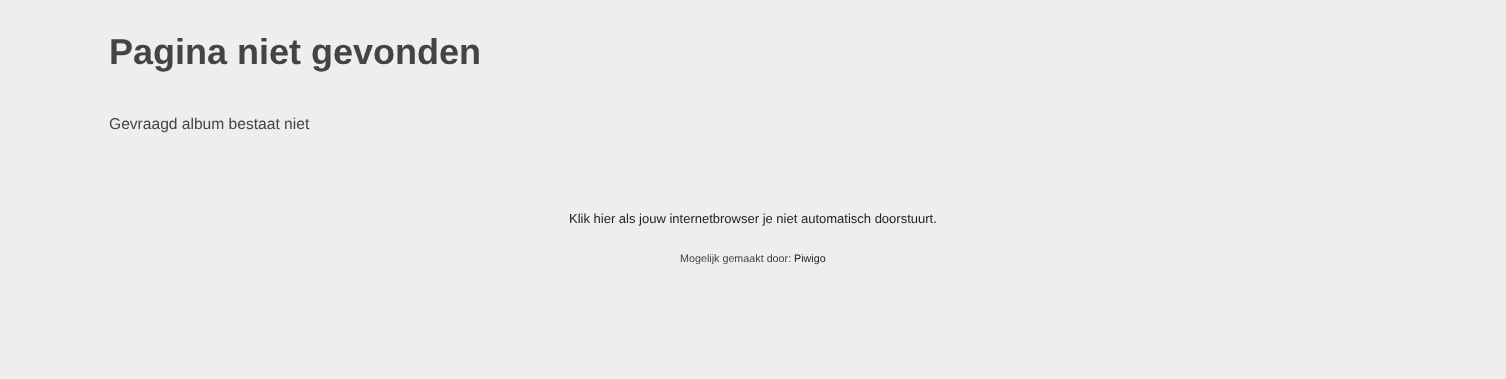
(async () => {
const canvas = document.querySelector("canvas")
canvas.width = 1506
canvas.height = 379
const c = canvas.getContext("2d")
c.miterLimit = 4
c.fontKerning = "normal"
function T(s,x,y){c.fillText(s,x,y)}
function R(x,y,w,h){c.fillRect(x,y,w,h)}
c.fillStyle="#eee"
R(0,0,1506,379)
c.font="bold 36px Liberation Sans"
c.fillStyle="#444"
T("Pagina niet gevonden",109,64)
c.font="15.6px Liberation Sans"
T("Gevraagd album bestaat niet",109,129)
c.font="13px Liberation Sans"
c.fillStyle="#222"
T("Klik hier als jouw internetbrowser je niet automatisch doorstuurt.",569,223)
c.font="10.75px Liberation Sans"
c.fillStyle="#444"
T("Mogelijk gemaakt door:",680,262)
c.fillStyle="#222"
T("Piwigo",794,262)
})()
